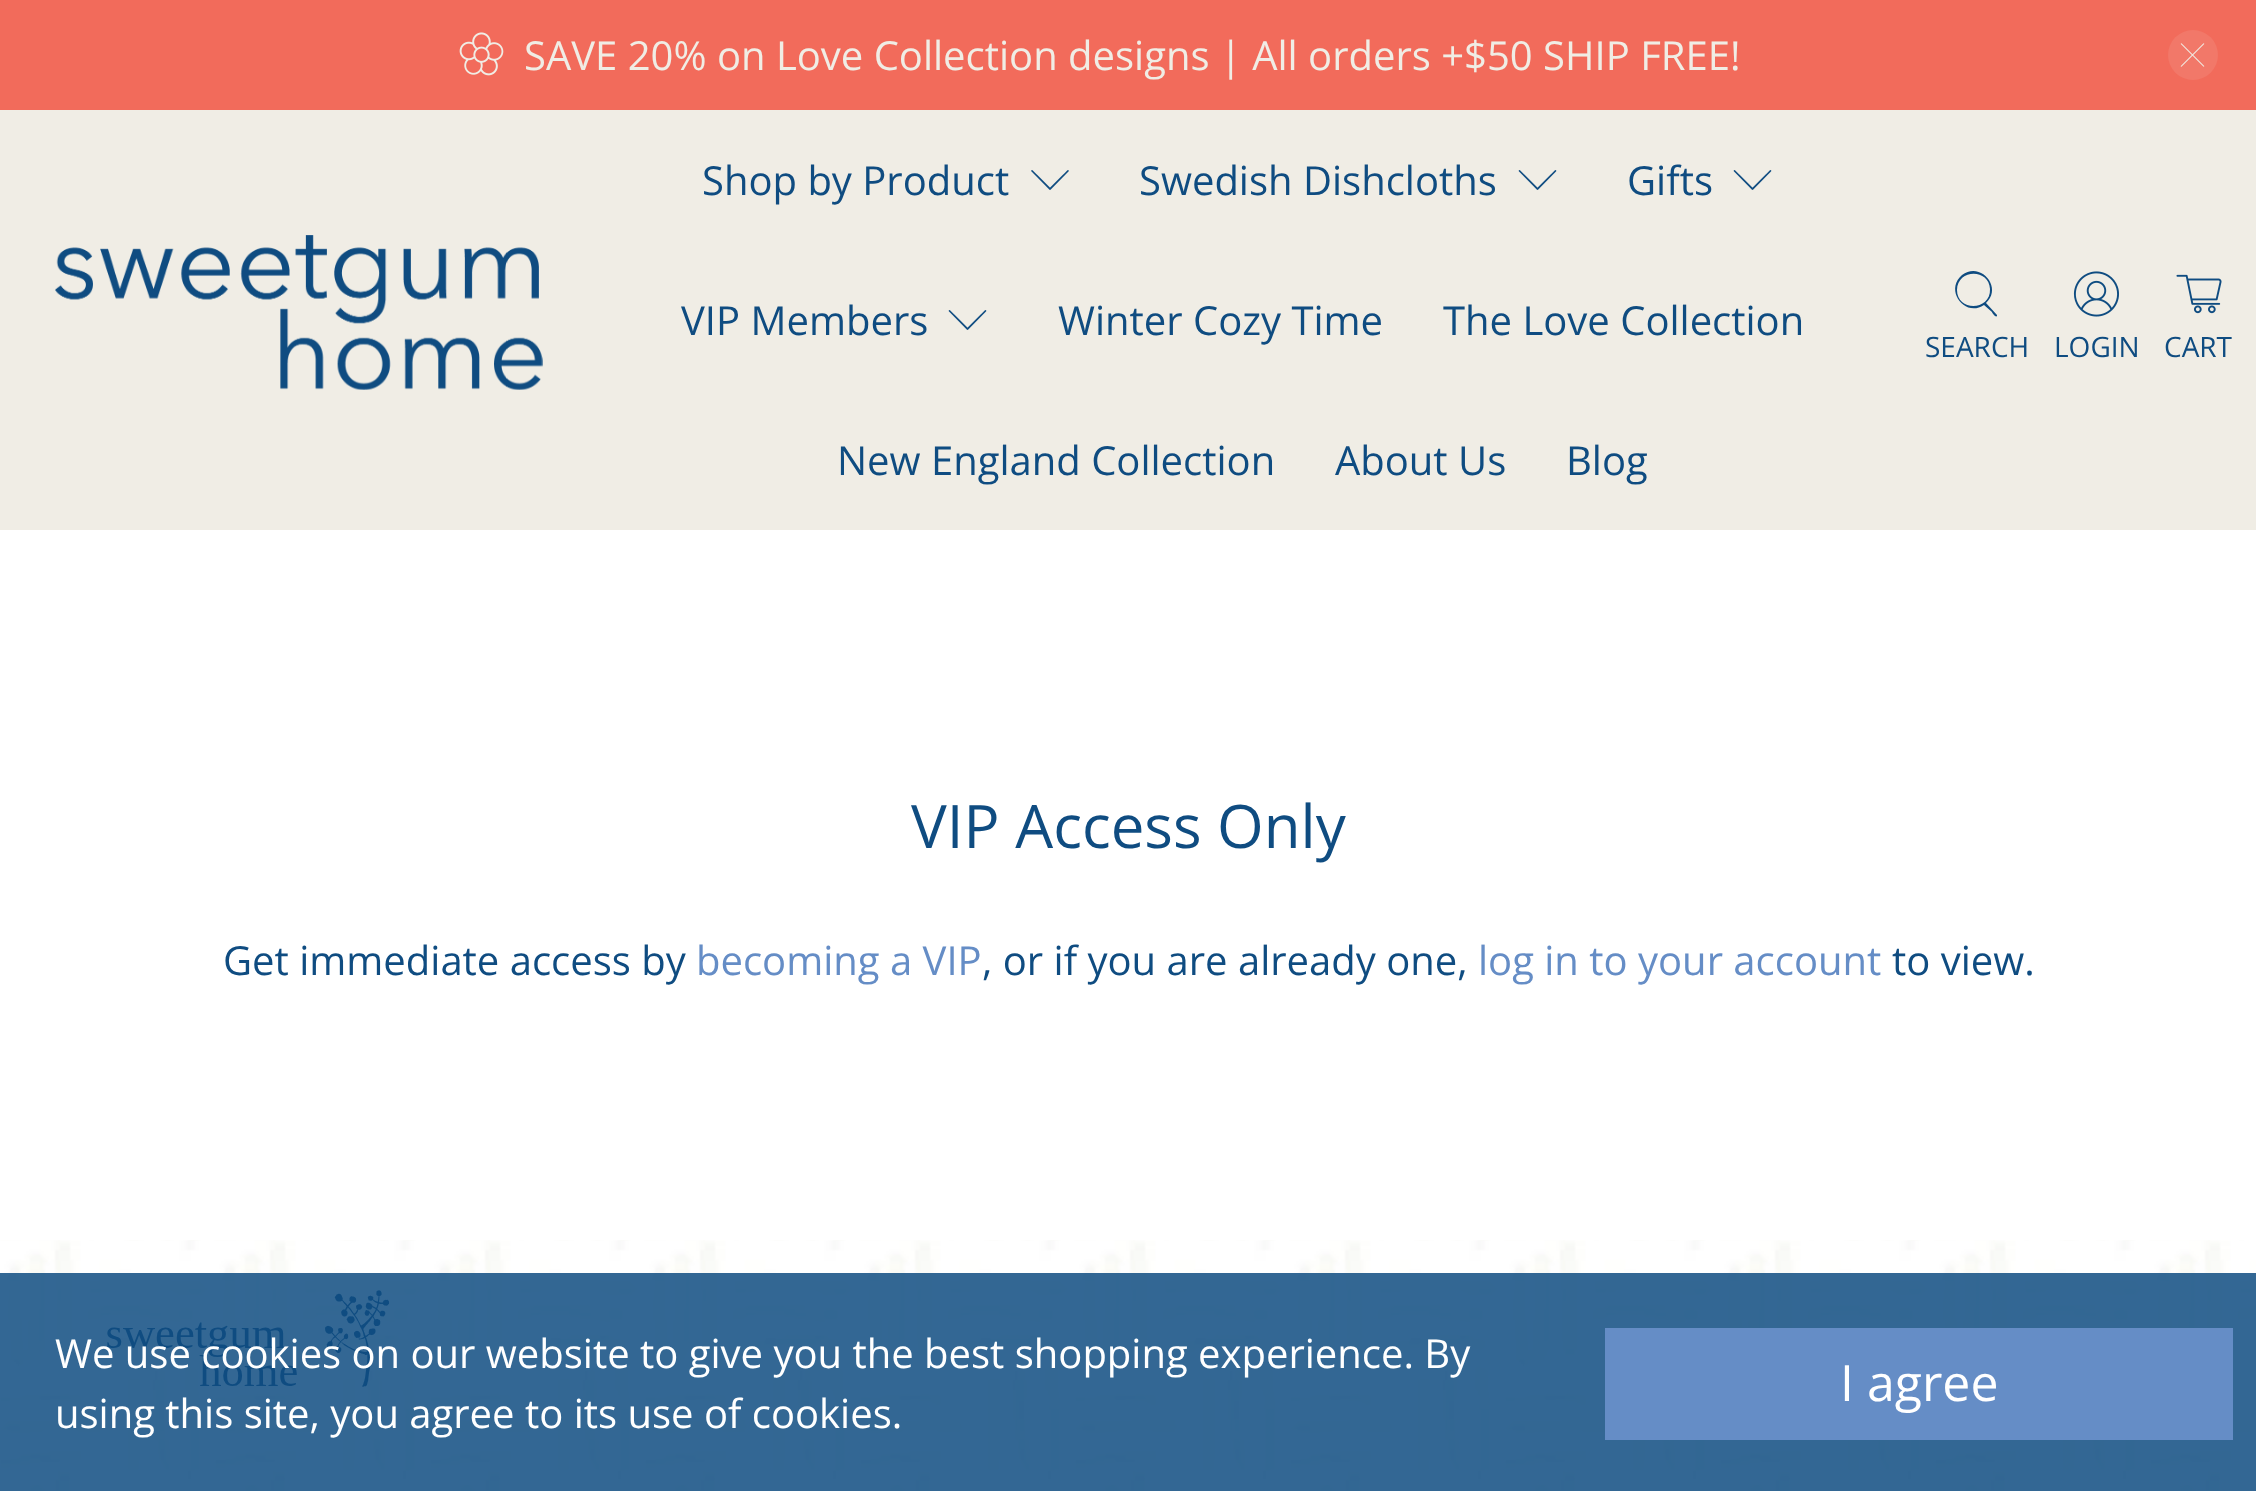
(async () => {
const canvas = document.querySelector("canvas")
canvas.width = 2256
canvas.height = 1491
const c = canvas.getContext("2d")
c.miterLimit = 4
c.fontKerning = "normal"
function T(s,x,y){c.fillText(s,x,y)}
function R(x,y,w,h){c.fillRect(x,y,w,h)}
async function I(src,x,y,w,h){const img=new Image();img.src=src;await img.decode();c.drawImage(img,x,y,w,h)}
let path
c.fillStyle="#fff"
R(0,0,2256,1491)
c.fillStyle="#f26b5b"
R(0,0,2256,110)
await I("1.png",459,32,45,44)
c.font="40px Open Sans"
c.fillStyle="#f0ede5"
T("SAVE 20% on Love Collection designs | All orders +$50 SHIP FREE!",524,70)
c.fillStyle="#f27869"
c.beginPath()
c.arc(2193,55,25,0,7)
c.fill()
await I("2.png",2180,43,25,24)
c.fillStyle="#f0ede5"
R(0,110,2256,420)
await I("3.png",55,235,488,155)
c.fillStyle="#0f4c81"
T("Shop by Product",702,195)
await I("4.png",1031,170,38,20)
T("Swedish Dishcloths",1139,195)
await I("5.png",1518,170,39,20)
T("Gifts",1627,195)
await I("5.png",1733,170,39,20)
T("VIP Members",681,335)
await I("5.png",948,310,39,20)
T("Winter Cozy Time",1058,335)
T("The Love Collection",1443,335)
T("New England Collection",837,475)
T("About Us",1335,475)
T("Blog",1566,475)
path = new Path2D("M1997 315l-11-12c17-15-5-42-24-28c-18 15 3 43 22 30l8 7c0 1 4 6 5 4zm-40-25c0-21 32-22 33-1c1 22-33 23-33 1z")
c.fill(path)
c.font="28px Open Sans"
T("SEARCH",1925,357)
await I("6.png",2073,271,46,46)
T("LOGIN",2054,357)
await I("7.png",2176,274,46,40)
T("CART",2164,357)
c.font="60px Open Sans"
T("VIP Access Only",911,848)
c.font="40px Open Sans"
T("Get immediate access by",223,975)
c.fillStyle="#658dc6"
T("becoming a VIP",696,975)
c.fillStyle="#0f4c81"
T(", or if you are already one,",982,975)
c.fillStyle="#658dc6"
T("log in to your account",1478,975)
c.fillStyle="#0f4c81"
T("to view.",1892,975)
await I("8.png",0,1240,2256,251)
await I("9.png",107,1290,283,97)
c.fillStyle="#0f4c81d9"
R(0,1273,2256,218)
c.fillStyle="#fff"
T("We use cookies on our website to give you the best shopping experience. By",55,1368)
T("using this site, you agree to its use of cookies.",55,1428)
c.fillStyle="#658dc6"
R(1605,1328,628,112)
c.font="50px Open Sans"
c.fillStyle="#fff"
T("I agree",1840,1401)
})()
